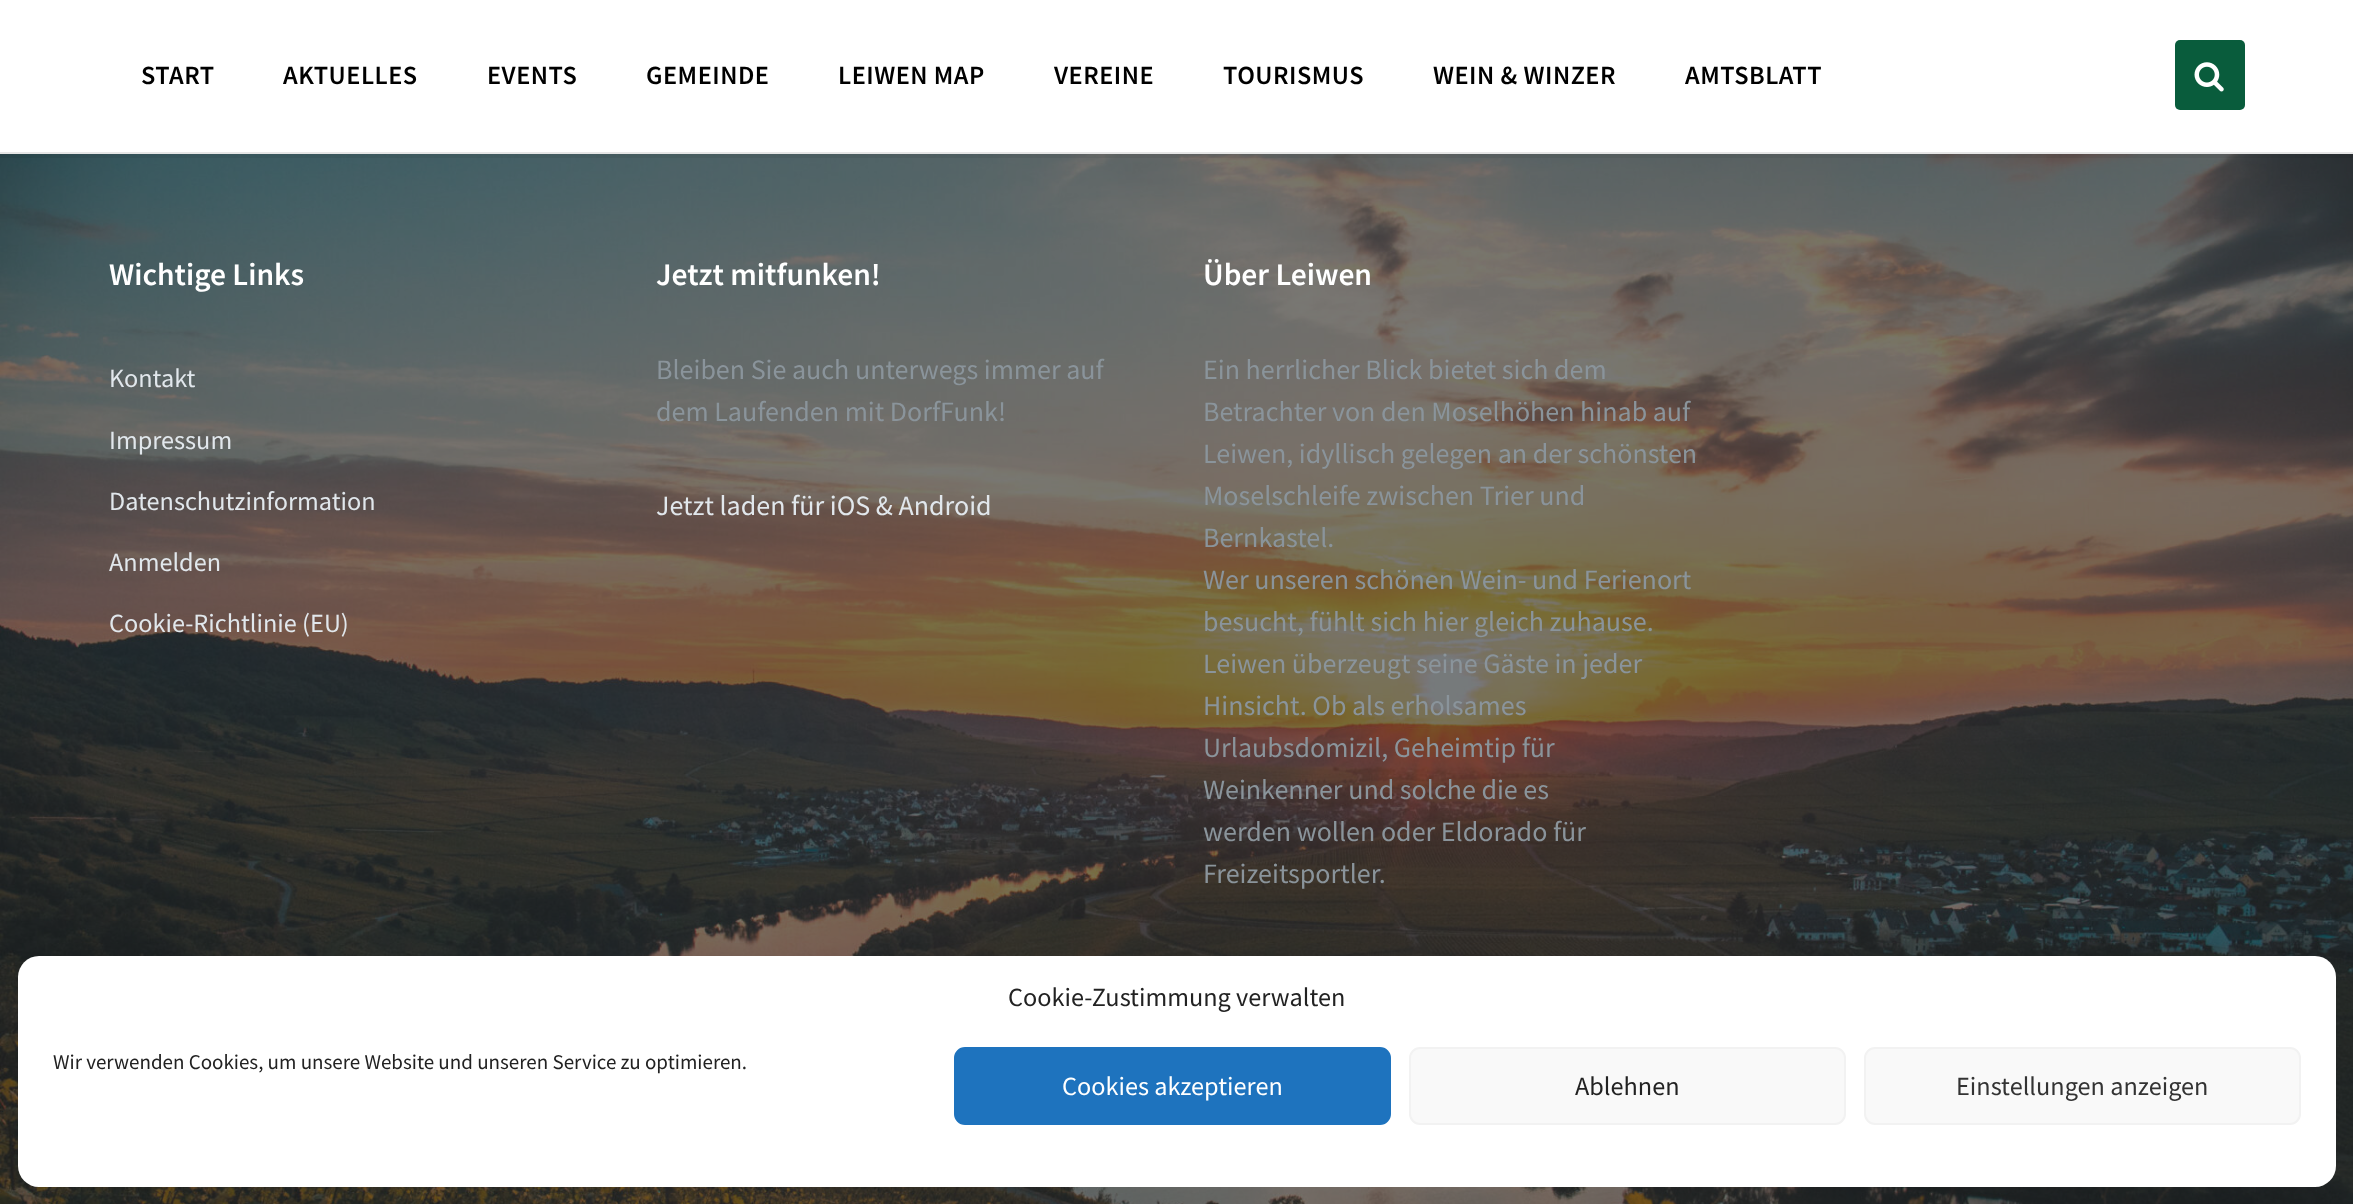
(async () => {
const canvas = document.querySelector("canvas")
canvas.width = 2353
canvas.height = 1204
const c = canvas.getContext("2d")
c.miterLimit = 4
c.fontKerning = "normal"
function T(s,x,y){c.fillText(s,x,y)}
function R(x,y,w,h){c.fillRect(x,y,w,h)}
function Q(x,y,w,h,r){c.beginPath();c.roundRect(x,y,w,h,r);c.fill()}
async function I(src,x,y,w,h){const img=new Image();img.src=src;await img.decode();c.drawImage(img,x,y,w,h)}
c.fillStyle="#fff"
R(0,0,2353,1204)
await I("2.png",0,154,2353,1050)
c.strokeStyle="#0000000d"
c.lineWidth=4
c.strokeRect(-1,-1,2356,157)
R(0,0,2353,152)
c.fillStyle="#e6e6e6"
R(0,152,2353,2)
c.letterSpacing="0.5px"
c.font="600 26.25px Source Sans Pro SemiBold"
c.fillStyle="#000"
T("START",141,84)
T("AKTUELLES",283,84)
T("EVENTS",487,84)
T("GEMEINDE",646,84)
T("LEIWEN MAP",838,84)
T("VEREINE",1054,84)
T("TOURISMUS",1223,84)
T("WEIN & WINZER",1433,84)
T("AMTSBLATT",1685,84)
c.fillStyle="#095c3c"
Q(2175,40,70,70,5)
await I("1.png",2194,62,30,30)
c.letterSpacing="0px"
c.font="600 31.5px Source Sans Pro SemiBold"
c.fillStyle="#fff"
T("Wichtige Links",109,285)
c.font="26.25px Source Sans Pro"
c.fillStyle="#e1e7ec"
T("Kontakt",109,387)
T("Impressum",109,449)
T("Datenschutzinformation",109,510)
T("Anmelden",109,571)
T("Cookie-Richtlinie (EU)",109,632)
c.font="600 31.5px Source Sans Pro SemiBold"
c.fillStyle="#fff"
T("Jetzt mitfunken!",656,285)
c.font="28px Source Sans Pro"
c.fillStyle="#8a949b"
T("Bleiben Sie auch unterwegs immer auf",656,379)
T("dem Laufenden mit DorfFunk!",656,421)
c.fillStyle="#e1e7ec"
T("Jetzt laden für iOS & Android",656,515)
c.font="600 31.5px Source Sans Pro SemiBold"
c.fillStyle="#fff"
T("Über Leiwen",1203,285)
c.font="28px Source Sans Pro"
c.fillStyle="#8a949b"
T("Ein herrlicher Blick bietet sich dem",1203,379)
T("Betrachter von den Moselhöhen hinab auf",1203,421)
T("Leiwen, idyllisch gelegen an der schönsten",1203,463)
T("Moselschleife zwischen Trier und",1203,505)
T("Bernkastel.",1203,547)
T("Wer unseren schönen Wein- und Ferienort",1203,589)
T("besucht, fühlt sich hier gleich zuhause.",1203,631)
T("Leiwen überzeugt seine Gäste in jeder",1203,673)
T("Hinsicht. Ob als erholsames",1203,715)
T("Urlaubsdomizil, Geheimtip für",1203,757)
T("Weinkenner und solche die es",1203,799)
T("werden wollen oder Eldorado für",1203,841)
T("Freizeitsportler.",1203,883)
c.fillStyle="#fff"
Q(18,956,2318,231,21)
c.font="26.25px Source Sans Pro"
c.fillStyle="#222"
T("Cookie-Zustimmung verwalten",1008,1006)
c.font="21px Source Sans Pro"
T("Wir verwenden Cookies, um unsere Website und unseren Service zu optimieren.",53,1069)
c.fillStyle="#1e73be"
c.beginPath()
c.roundRect(955,1048,435,76,10)
c.fill()
c.strokeStyle="#1e73be"
c.lineWidth=2
c.stroke()
c.font="26.25px Source Sans Pro"
c.fillStyle="#fff"
T("Cookies akzeptieren",1062,1095)
c.fillStyle="#f9f9f9"
c.beginPath()
c.roundRect(1410,1048,435,76,10)
c.fill()
c.strokeStyle="#f2f2f2"
c.stroke()
c.fillStyle="#222"
T("Ablehnen",1575,1095)
c.fillStyle="#f9f9f9"
c.beginPath()
c.roundRect(1865,1048,435,76,10)
c.fill()
c.stroke()
c.fillStyle="#333"
T("Einstellungen anzeigen",1956,1095)
})()
